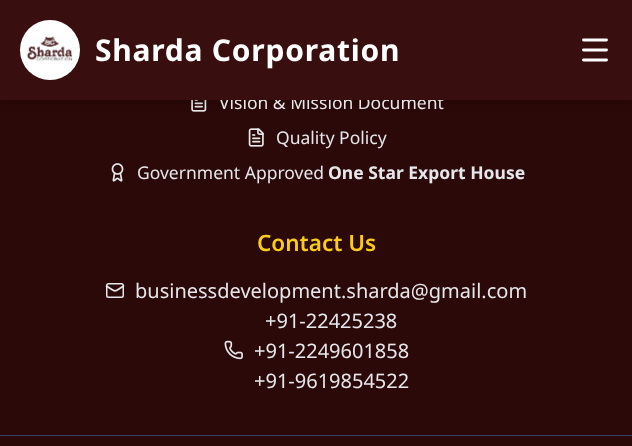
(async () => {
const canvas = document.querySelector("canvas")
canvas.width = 632
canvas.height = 446
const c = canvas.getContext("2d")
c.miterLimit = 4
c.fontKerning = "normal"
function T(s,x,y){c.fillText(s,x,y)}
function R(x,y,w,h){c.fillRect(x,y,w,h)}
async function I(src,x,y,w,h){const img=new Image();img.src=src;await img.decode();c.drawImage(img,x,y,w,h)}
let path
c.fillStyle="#2b0908"
R(0,0,632,446)
await I("2.png",191,100,16,12)
c.fillStyle="#0000001a"
c.filter="blur(2.5px)"
c.beginPath()
c.rect(3,5,627,95)
c.fill()
c.filter="none"
c.filter="blur(4px)"
c.beginPath()
c.rect(1,6,630,98)
c.fill()
c.filter="none"
c.font="17.5px Noto Sans"
c.fillStyle="#e5e7eb"
T("Vision & Mission Document",219,109)
c.fillStyle="#380f0e"
R(0,0,632,100)
c.fillStyle="#fff"
c.beginPath()
c.arc(50,50,30,0,7)
c.fill()
await I("1.png",27,36,46,26)
c.letterSpacing="0.75px"
c.font="bold 30px Noto Sans"
T("Sharda Corporation",95,61)
path = new Path2D("M583.5 40h23m-23 10h23m-23 10h23")
c.strokeStyle="#fff"
c.lineWidth=2.9
c.lineCap="round"
c.lineJoin="round"
c.stroke(path)
await I("3.png",248,128,16,19)
c.letterSpacing="0px"
c.font="17.5px Noto Sans"
c.fillStyle="#e5e7eb"
T("Quality Policy",276,144)
await I("4.png",111,163,13,19)
T("Government Approved",137,179)
c.font="bold 17.5px Noto Sans"
T("One Star Export House",328,179)
c.font="600 22.5px Noto Sans"
c.fillStyle="#facc15"
T("Contact Us",257,251)
path = new Path2D("M123.5 286c-10.5 6.5-6.5 6.5-17 0")
c.strokeStyle="#e5e7eb"
c.lineWidth=1.7
c.stroke(path)
c.beginPath()
c.roundRect(106.75,283.75,16.5,13.5,1.75)
c.lineWidth=1.5
c.lineJoin="miter"
c.stroke()
c.font="20px Noto Sans"
c.fillStyle="#e5e7eb"
T("businessdevelopment.sharda@gmail.com",135,298)
await I("5.png",224,340,19,20)
T("+91-22425238",265,328)
T("+91-2249601858",254,358)
T("+91-9619854522",254,388)
c.fillStyle="#374151"
R(0,435,632,1)
})()
